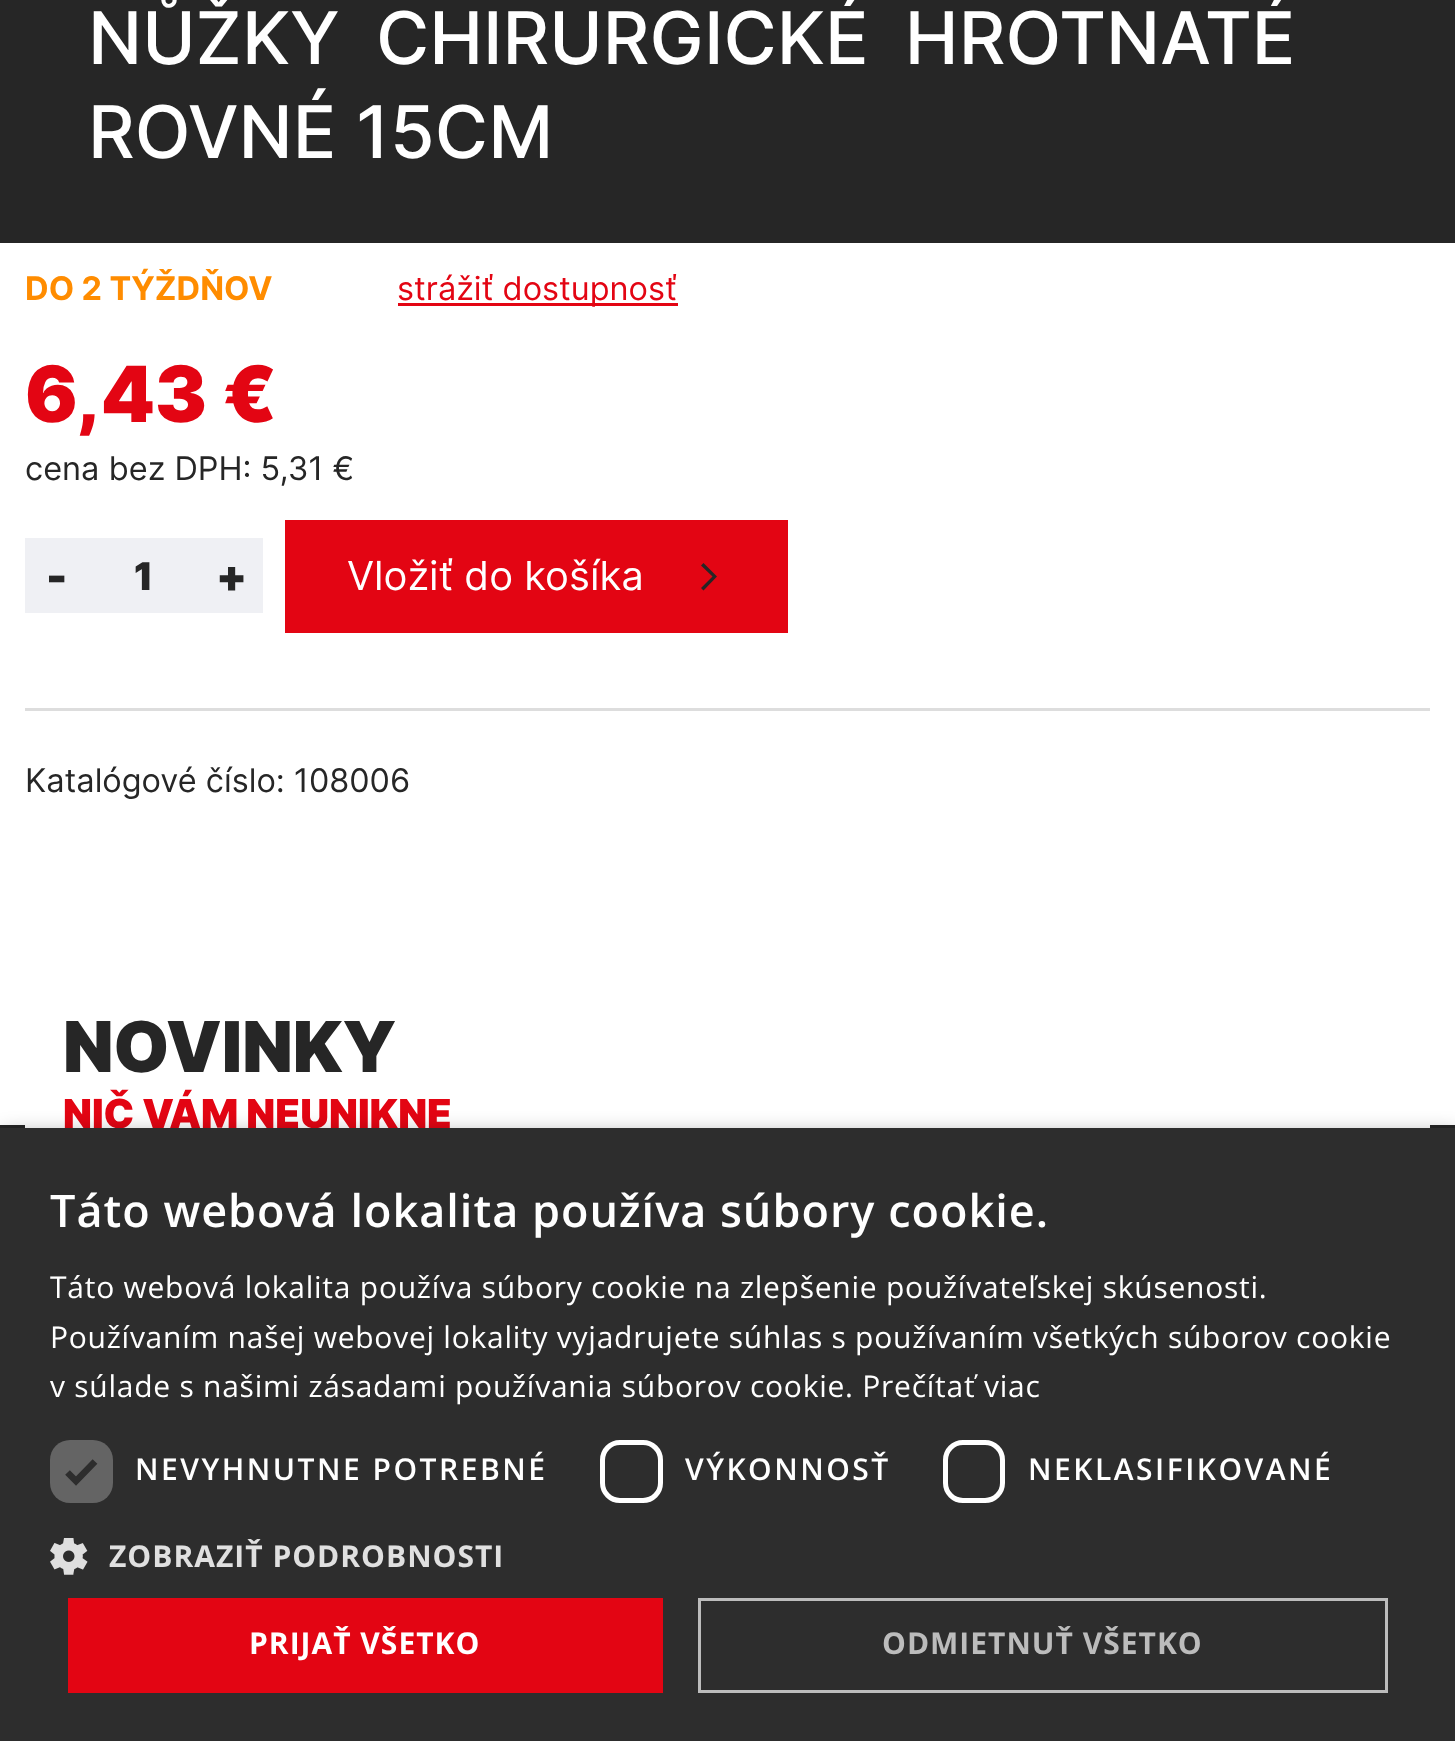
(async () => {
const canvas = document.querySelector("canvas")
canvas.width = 1455
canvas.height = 1741
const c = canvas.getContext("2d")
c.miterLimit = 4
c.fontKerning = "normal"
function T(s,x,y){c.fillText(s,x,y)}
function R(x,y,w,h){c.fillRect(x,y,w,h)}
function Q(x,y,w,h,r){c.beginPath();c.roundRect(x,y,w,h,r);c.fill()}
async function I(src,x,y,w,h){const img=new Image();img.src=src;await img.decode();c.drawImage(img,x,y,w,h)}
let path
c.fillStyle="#fff"
R(0,0,1455,1741)
c.fillStyle="#262626"
R(0,0,1455,243)
c.wordSpacing="17px"
c.font="500 72.5px Inter"
c.fillStyle="#fff"
T("NŮŽKY CHIRURGICKÉ HROTNATÉ",88,64)
c.wordSpacing="0px"
T("ROVNÉ 15CM",88,158)
c.font="bold 32.5px Inter"
c.fillStyle="#ff8c00"
T("DO 2 TÝŽDŇOV",25,300)
c.fillStyle="#e30513"
R(398,303,280,3)
c.font="32.5px Inter"
T("strážiť dostupnosť",397,300)
c.font="900 77.5px Inter"
T("6,43 €",25,422)
c.font="32.5px Inter"
c.fillStyle="#262626"
T("cena bez DPH: 5,31 €",25,480)
c.fillStyle="#eff0f4"
R(25,538,238,75)
c.font="900 45px Inter"
c.fillStyle="#262626"
T("-",46,592)
c.font="900 38px Inter"
T("1",134,590)
c.font="900 45px Inter"
T("+",216,592)
c.fillStyle="#e30513"
R(285,520,503,113)
c.font="40px Inter"
c.fillStyle="#fff"
T("Vložiť do košíka",347,590)
c.fillStyle="#262626"
path = new Path2D("M703.5 563l-2.5 2.5l11.5 11l-11.5 11.5l2.5 2.5l13.5-14z")
c.fill(path)
c.fillStyle="#ddd"
R(25,708,1405,3)
c.font="32.5px Inter"
c.fillStyle="#262626"
T("Katalógové číslo: 108006",25,792)
R(0,1125,1455,3)
c.fillStyle="#fff"
R(25,1125,1405,3)
c.font="900 70px Inter"
c.fillStyle="#262626"
T("NOVINKY",63,1072)
c.font="900 40px Inter"
c.fillStyle="#e30513"
T("NIČ VÁM NEUNIKNE",63,1128)
c.fillStyle="#00000059"
c.filter="blur(10px)"
c.beginPath()
c.rect(3,1133,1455,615)
c.fill()
c.filter="none"
c.fillStyle="#2d2d2d"
R(0,1128,1455,613)
c.letterSpacing="1px"
c.font="600 45px Open Sans"
c.fillStyle="#fff"
T("Táto webová lokalita používa súbory cookie.",50,1227)
c.letterSpacing="0.75px"
c.font="30px Open Sans"
T("Táto webová lokalita používa súbory cookie na zlepšenie používateľskej skúsenosti.",50,1298)
T("Používaním našej webovej lokality vyjadrujete súhlas s používaním všetkých súborov cookie",50,1348)
T("v súlade s našimi zásadami používania súborov cookie. Prečítať viac",50,1397)
c.fillStyle="#646464"
Q(50,1440,63,63,20)
path = new Path2D("M67.5 1472.5l8.5 8.5l19-19.5")
c.strokeStyle="#2d2d2d"
c.lineWidth=6.6
c.stroke(path)
c.letterSpacing="2.5px"
c.font="600 30px Open Sans"
c.fillStyle="#fff"
T("NEVYHNUTNE POTREBNÉ",135,1480)
c.beginPath()
c.roundRect(602.5,1442.5,58,58,17.5)
c.strokeStyle="#fff"
c.lineWidth=5
c.stroke()
T("VÝKONNOSŤ",685,1480)
c.beginPath()
c.roundRect(945.5,1442.5,57,58,17.5)
c.stroke()
T("NEKLASIFIKOVANÉ",1028,1480)
await I("1.png",50,1538,38,37)
c.letterSpacing="1px"
c.font="bold 30px Open Sans"
c.fillStyle="#e0e0e0"
T("ZOBRAZIŤ PODROBNOSTI",109,1567)
c.fillStyle="#e30513"
R(68,1598,595,95)
c.fillStyle="#fff"
T("PRIJAŤ VŠETKO",249,1654)
c.strokeStyle="#bcbcbc"
c.lineWidth=3
c.strokeRect(699.5,1599.5,687,92)
c.fillStyle="#bcbcbc"
T("ODMIETNUŤ VŠETKO",882,1654)
})()
